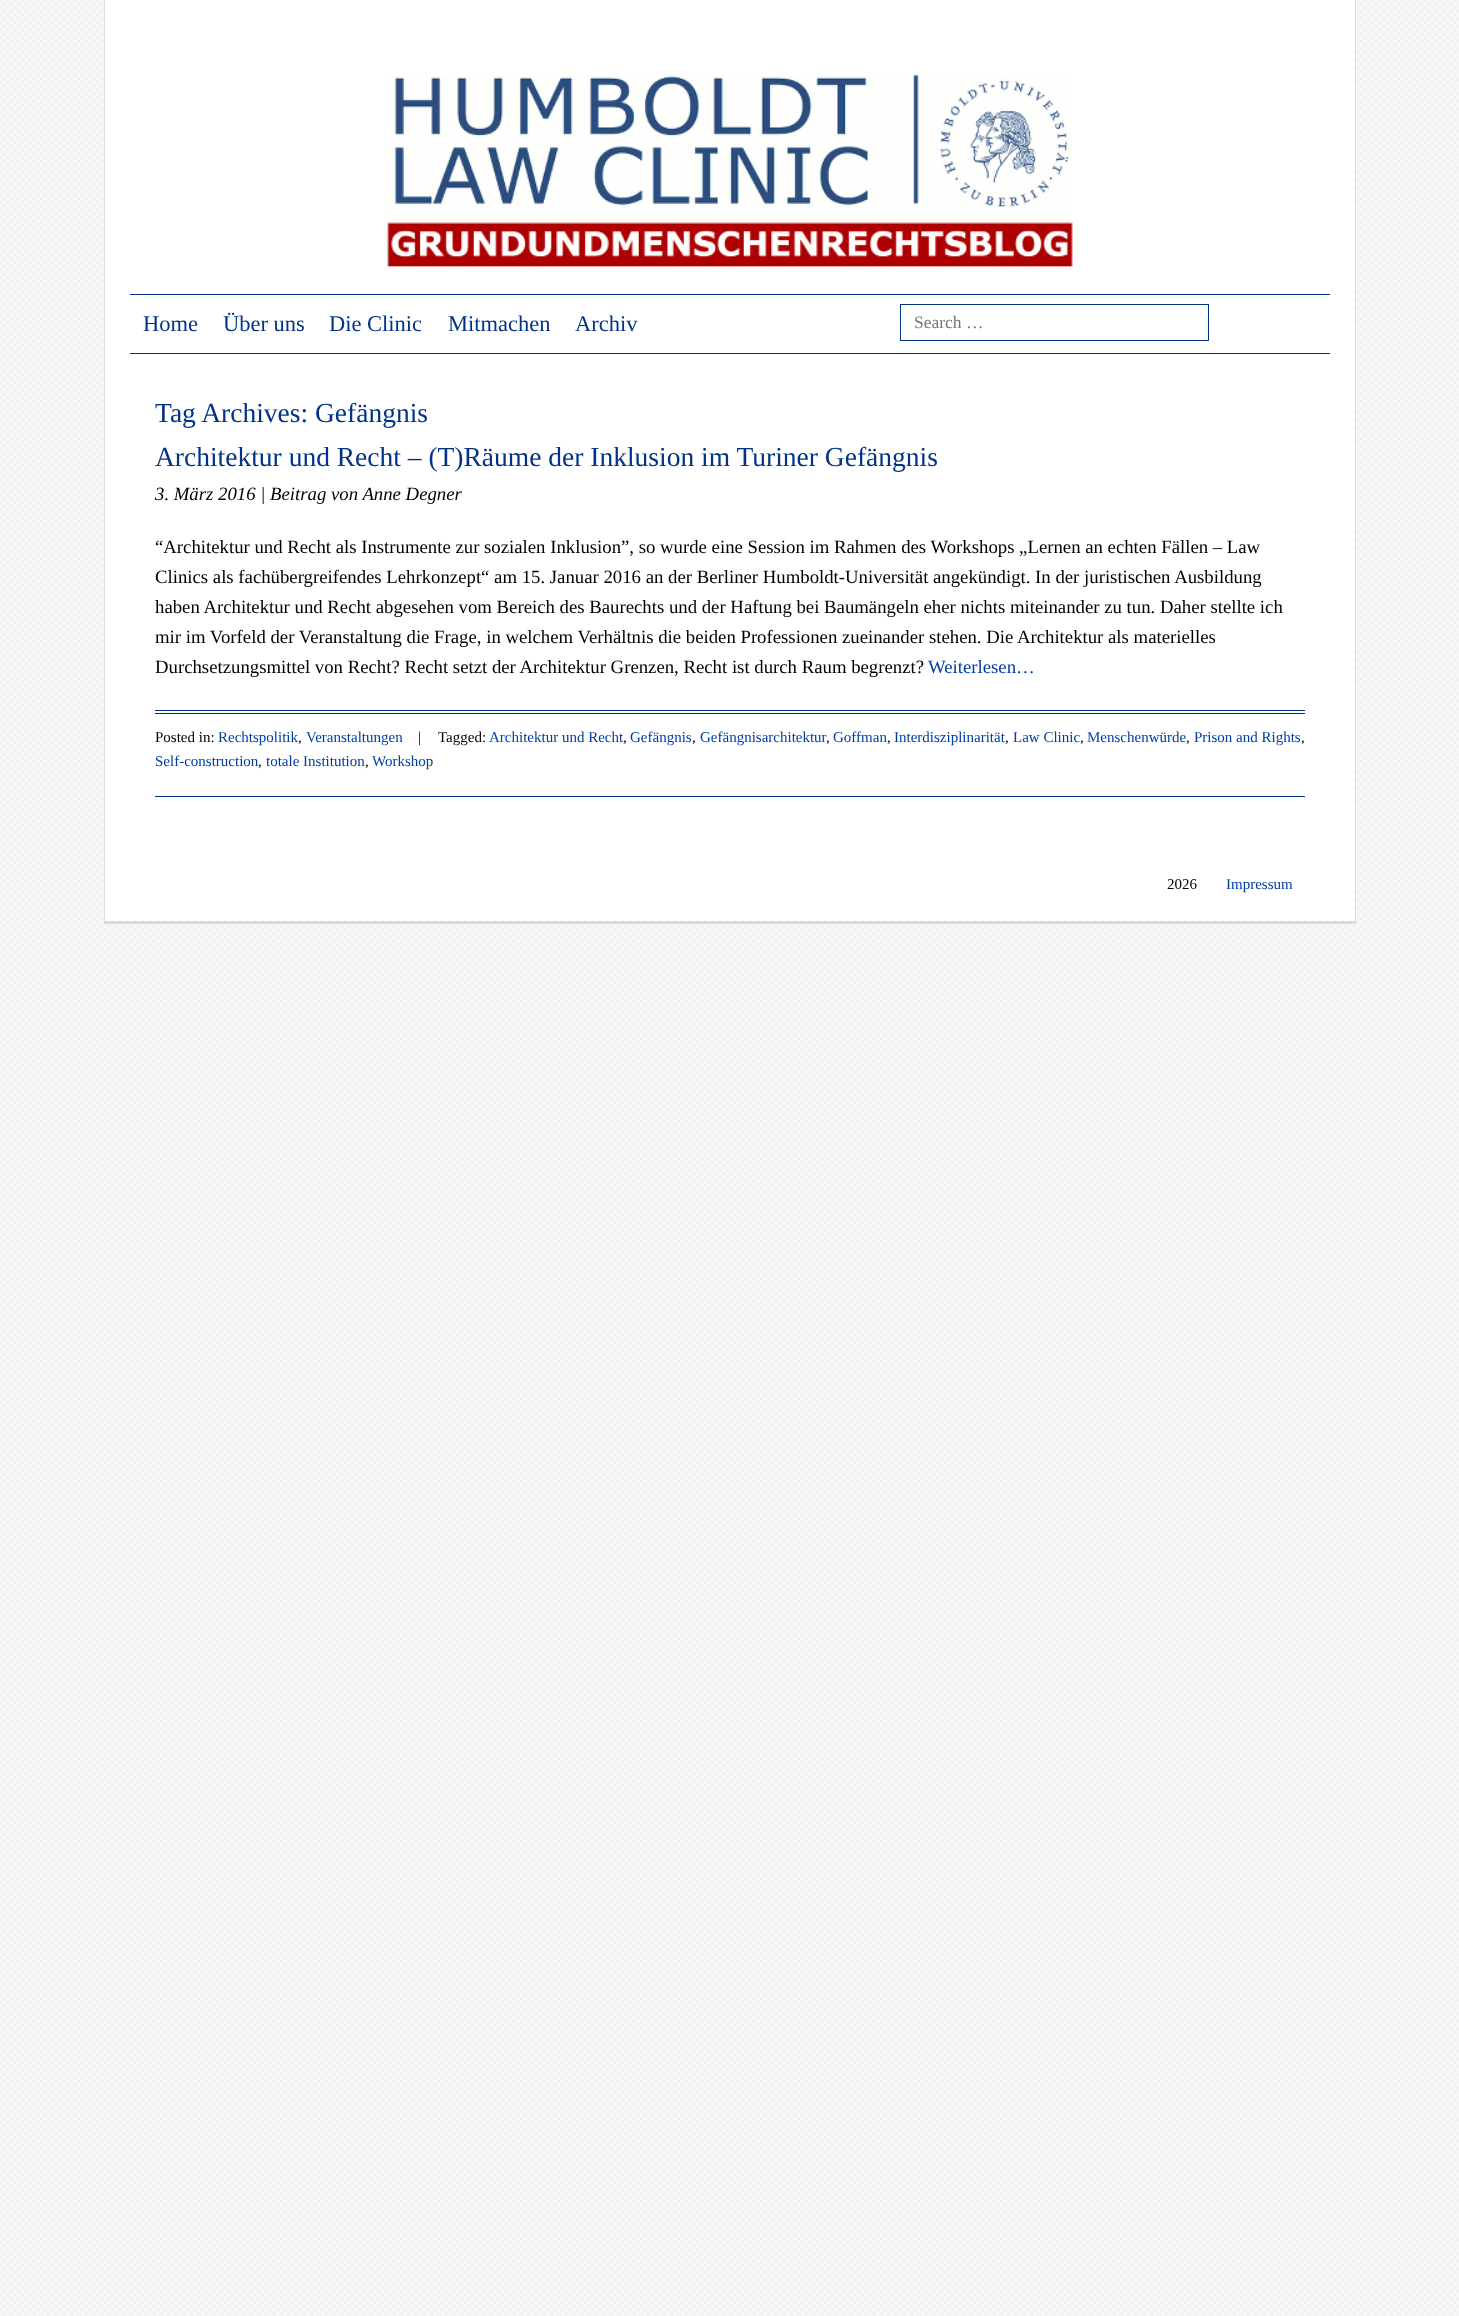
(async () => {
const canvas = document.querySelector("canvas")
canvas.width = 1459
canvas.height = 2316
const c = canvas.getContext("2d")
c.miterLimit = 4
c.fontKerning = "normal"
function T(s,x,y){c.fillText(s,x,y)}
function R(x,y,w,h){c.fillRect(x,y,w,h)}
async function I(src,x,y,w,h){const img=new Image();img.src=src;await img.decode();c.drawImage(img,x,y,w,h)}
c.fillStyle="#fff"
R(0,0,1459,2316)
await I("1.png",0,0,1459,2316)
c.fillStyle="#0000001a"
c.filter="blur(0.5px)"
c.beginPath()
c.rect(104,0,1252,924)
c.fill()
c.filter="none"
c.fillStyle="#fff"
R(105,0,1250,921)
c.fillStyle="#038"
R(130,353,1200,1)
R(130,294,1200,1)
await I("2.png",387,74,686,195)
c.font="22.5px Liberation Serif"
T("Home",143,331)
T("Über uns",223,331)
T("Die Clinic",329,331)
T("Mitmachen",448,331)
T("Archiv",575,331)
c.strokeStyle="#038"
c.strokeRect(900.5,304.5,308,36)
c.font="17.5px Liberation Serif"
c.fillStyle="#757575"
T("Search …",914,328)
c.font="27.5px Liberation Serif"
c.fillStyle="#038"
T("Tag Archives: Gefängnis",155,422)
T("Architektur und Recht – (T)Räume der Inklusion im Turiner Gefängnis",155,466)
c.font="italic 18.75px Liberation Serif"
c.fillStyle="#000"
T("3. März 2016 | Beitrag von Anne Degner",155,500)
c.font="18.75px Liberation Serif"
T("“Architektur und Recht als Instrumente zur sozialen Inklusion”, so wurde eine Session im Rahmen des Workshops „Lernen an echten Fällen – Law",155,553)
T("Clinics als fachübergreifendes Lehrkonzept“ am 15. Januar 2016 an der Berliner Humboldt-Universität angekündigt. In der juristischen Ausbildung",155,583)
T("haben Architektur und Recht abgesehen vom Bereich des Baurechts und der Haftung bei Baumängeln eher nichts miteinander zu tun. Daher stellte ich",155,613)
T("mir im Vorfeld der Veranstaltung die Frage, in welchem Verhältnis die beiden Professionen zueinander stehen. Die Architektur als materielles",155,643)
T("Durchsetzungsmittel von Recht? Recht setzt der Architektur Grenzen, Recht ist durch Raum begrenzt?",155,673)
c.fillStyle="#003da3"
T("Weiterlesen…",928,673)
c.fillStyle="#038"
R(155,710,1150,1)
R(155,713,1150,1)
R(155,796,1150,1)
c.font="15px Liberation Serif"
c.fillStyle="#000"
T("Posted in:",155,742)
c.fillStyle="#003da3"
T("Rechtspolitik",218,742)
c.fillStyle="#000"
T(",",298,742)
c.fillStyle="#003da3"
T("Veranstaltungen",306,742)
c.fillStyle="#000"
T("|",418,742)
T("Tagged:",438,742)
c.fillStyle="#003da3"
T("Architektur und Recht",489,742)
c.fillStyle="#000"
T(",",623,742)
c.fillStyle="#003da3"
T("Gefängnis",630,742)
c.fillStyle="#000"
T(",",692,742)
c.fillStyle="#003da3"
T("Gefängnisarchitektur",700,742)
c.fillStyle="#000"
T(",",826,742)
c.fillStyle="#003da3"
T("Goffman",833,742)
c.fillStyle="#000"
T(",",887,742)
c.fillStyle="#003da3"
T("Interdisziplinarität",894,742)
c.fillStyle="#000"
T(",",1005,742)
c.fillStyle="#003da3"
T("Law Clinic",1013,742)
c.fillStyle="#000"
T(",",1080,742)
c.fillStyle="#003da3"
T("Menschenwürde",1087,742)
c.fillStyle="#000"
T(",",1186,742)
c.fillStyle="#003da3"
T("Prison and Rights",1194,742)
c.fillStyle="#000"
T(",",1301,742)
c.fillStyle="#003da3"
T("Self-construction",155,766)
c.fillStyle="#000"
T(",",258,766)
c.fillStyle="#003da3"
T("totale Institution",266,766)
c.fillStyle="#000"
T(",",365,766)
c.fillStyle="#003da3"
T("Workshop",372,766)
c.fillStyle="#000"
T("2026",1167,889)
c.fillStyle="#003da3"
T("Impressum",1226,889)
})()
